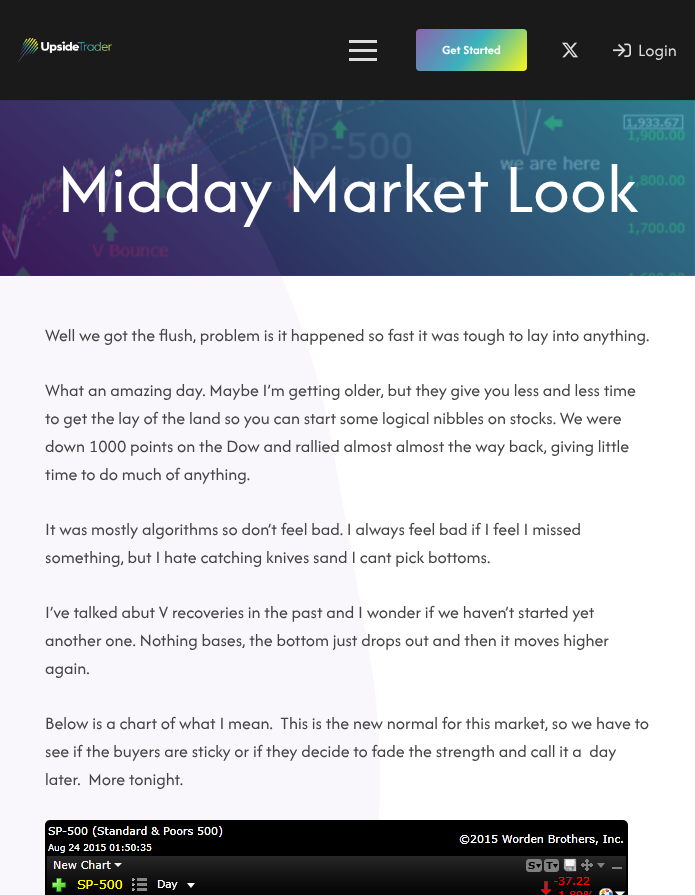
(async () => {
const canvas = document.querySelector("canvas")
canvas.width = 695
canvas.height = 895
const c = canvas.getContext("2d")
c.miterLimit = 4
c.fontKerning = "normal"
function T(s,x,y){c.fillText(s,x,y)}
function R(x,y,w,h){c.fillRect(x,y,w,h)}
function Q(x,y,w,h,r){c.beginPath();c.roundRect(x,y,w,h,r);c.fill()}
async function I(src,x,y,w,h){const img=new Image();img.src=src;await img.decode();c.drawImage(img,x,y,w,h)}
let gradient, path
c.fillStyle="#fff"
R(0,0,695,895)
await I("4.png",0,100,695,176)
gradient = c.createLinearGradient(559,-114,136,390)
gradient.addColorStop(0,"#3ab2becc")
gradient.addColorStop(1,"#380e5ccc")
c.fillStyle = gradient
R(0,100,695,176)
c.fillStyle="#8c64ae0d"
path = new Path2D("M332 444l37 207c61 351-135 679-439 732l-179 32c-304 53-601-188-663-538l-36-207c-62-351 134-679 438-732l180-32c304-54 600 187 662 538z")
c.fill(path)
c.save()
c.beginPath()
c.rect(0,0,695,276)
c.clip()
c.fillStyle="#8c64ae1a"
path = new Path2D("M332 444l37 207c61 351-135 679-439 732l-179 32c-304 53-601-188-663-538l-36-207c-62-351 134-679 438-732l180-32c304-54 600 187 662 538z")
c.fill(path)
c.restore()
c.fillStyle="#00000014"
R(0,100,695,1)
c.fillStyle="#1a1a1a"
R(0,0,695,100)
await I("1.png",18,37,94,25)
c.fillStyle="#ddd"
R(349,49,28,3)
R(349,40,28,3)
R(349,58,28,3)
gradient = c.createLinearGradient(429,14,514,86)
gradient.addColorStop(0,"#8c64ae")
gradient.addColorStop(.5,"#3ab2be")
gradient.addColorStop(1,"#f9f618")
c.fillStyle = gradient
Q(416,29,111,42,4)
c.font="bold 13px Afacad"
c.fillStyle="#fff"
T("Get Started",442,54)
await I("2.png",562,42,16,16)
await I("3.png",613,43,18,14)
c.font="18px Afacad"
c.fillStyle="#ddd"
T("Login",638,56)
c.font="72px Afacad"
c.fillStyle="#fff"
T("Midday Market Look",57,212)
c.font="18px Afacad"
c.fillStyle="#444"
T("Well we got the flush, problem is it happened so fast it was tough to lay into anything.",45,341)
T("What an amazing day. Maybe I’m getting older, but they give you less and less time",45,396)
T("to get the lay of the land so you can start some logical nibbles on stocks. We were",45,424)
T("down 1000 points on the Dow and rallied almost almost the way back, giving little",45,452)
T("time to do much of anything.",45,480)
T("It was mostly algorithms so don’t feel bad. I always feel bad if I feel I missed",45,535)
T("something, but I hate catching knives sand I cant pick bottoms.",45,563)
T("I’ve talked abut V recoveries in the past and I wonder if we haven’t started yet",45,618)
T("another one. Nothing bases, the bottom just drops out and then it moves higher",45,646)
T("again.",45,674)
T("Below is a chart of what I mean.  This is the new normal for this market, so we have to",45,729)
T("see if the buyers are sticky or if they decide to fade the strength and call it a  day",45,757)
T("later.  More tonight.",45,785)
await I("5.png",45,820,583,75)
})()
